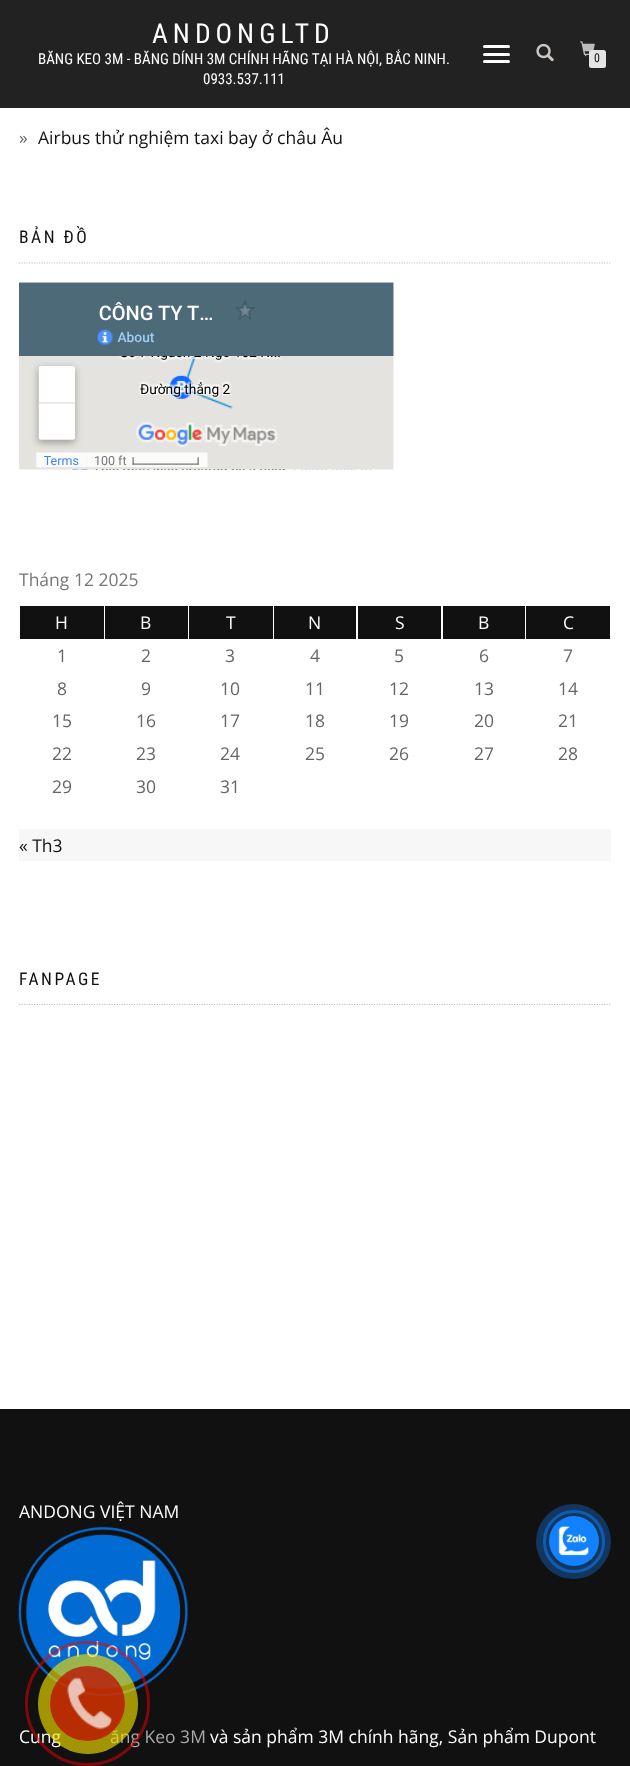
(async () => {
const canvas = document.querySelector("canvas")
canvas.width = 630
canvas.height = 1766
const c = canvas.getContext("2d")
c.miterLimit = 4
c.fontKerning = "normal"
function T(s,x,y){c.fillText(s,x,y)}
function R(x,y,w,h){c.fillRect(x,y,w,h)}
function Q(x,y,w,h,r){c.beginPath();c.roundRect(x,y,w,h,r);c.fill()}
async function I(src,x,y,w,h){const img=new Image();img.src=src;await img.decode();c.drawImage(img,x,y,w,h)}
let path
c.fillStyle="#fff"
R(0,0,630,1766)
c.fillStyle="#0a0a0ae6"
R(0,0,630,108)
c.letterSpacing="5px"
c.font="27.5px Roboto Condensed"
c.fillStyle="#fff"
T("ANDONGLTD",152,43)
c.letterSpacing="0px"
c.font="15px Roboto Condensed"
T("BĂNG KEO 3M - BĂNG DÍNH 3M CHÍNH HÃNG TẠI HÀ NỘI, BẮC NINH.",38,64)
T("0933.537.111",203,84)
Q(483,45,27,3,1.5)
Q(483,53,27,3,1.5)
Q(483,60,27,3,1.5)
await I("1.png",536,43,18,19)
await I("2.png",580,41,15,16)
c.fillStyle="#e5e5e5"
Q(589,50,17,18,2.5)
c.font="12px Roboto Condensed"
c.fillStyle="#111"
T("0",594,62)
c.font="17.5px Open Sans"
c.fillStyle="#666"
T("»",19,144)
c.fillStyle="#111"
T("Airbus thử nghiệm taxi bay ở châu Âu",38,144)
path = new Path2D("M19 263h592")
c.strokeStyle="#c2c2c2"
c.lineWidth=1.2
c.setLineDash([1.25,1.25])
c.stroke(path)
c.letterSpacing="2.5px"
c.font="17.5px Roboto Condensed"
T("BẢN ĐỒ",19,243)
await I("3.png",19,282,375,188)
c.letterSpacing="0px"
c.font="17.5px Open Sans"
c.fillStyle="#777"
T("Tháng 12 2025",19,586)
c.fillStyle="#111"
R(20,606,84,33)
c.fillStyle="#fff"
T("H",55,629)
c.fillStyle="#111"
R(105,606,83,33)
c.fillStyle="#fff"
T("B",140,629)
c.fillStyle="#111"
R(189,606,84,33)
c.fillStyle="#fff"
T("T",226,629)
c.fillStyle="#111"
R(274,606,82,33)
c.fillStyle="#fff"
T("N",308,629)
c.fillStyle="#111"
R(358,606,83,33)
c.fillStyle="#fff"
T("S",395,629)
c.fillStyle="#111"
R(443,606,82,33)
c.fillStyle="#fff"
T("B",478,629)
c.fillStyle="#111"
R(526,606,84,33)
c.fillStyle="#fff"
T("C",563,629)
c.fillStyle="#666"
T("1",57,662)
T("2",141,662)
T("3",225,662)
T("4",310,662)
T("5",394,662)
T("6",479,662)
T("7",563,662)
T("8",57,695)
T("9",141,695)
T("10",220,695)
T("11",305,695)
T("12",389,695)
T("13",474,695)
T("14",558,695)
T("15",52,727)
T("16",136,727)
T("17",220,727)
T("18",305,727)
T("19",389,727)
T("20",474,727)
T("21",558,727)
T("22",52,760)
T("23",136,760)
T("24",220,760)
T("25",305,760)
T("26",389,760)
T("27",474,760)
T("28",558,760)
T("29",52,793)
T("30",136,793)
T("31",220,793)
c.fillStyle="#f7f7f7"
R(19,829,592,32)
c.fillStyle="#111"
T("« Th3",19,852)
path = new Path2D("M19 1004.5h592")
c.stroke(path)
c.letterSpacing="2.5px"
c.font="17.5px Roboto Condensed"
T("FANPAGE",19,985)
R(0,1409,630,357)
c.letterSpacing="0px"
c.font="17.5px Open Sans"
c.fillStyle="#fff"
T("ANDONG VIỆT NAM",19,1518)
await I("4.png",18,1527,170,169)
T("Cung",19,1743)
c.fillStyle="#aaa"
T("ăng Keo 3M",110,1743)
c.fillStyle="#fff"
T("và sản phẩm 3M chính hãng, Sản phẩm Dupont",210,1743)
c.beginPath()
c.roundRect(544.5,1511.5,59,60,29.5)
c.strokeStyle="#114a87"
c.lineWidth=3
c.setLineDash([])
c.stroke()
c.fillStyle="#1182fc57"
c.beginPath()
c.arc(573.5,1541.5,37.5,0,7)
c.fill()
c.fillStyle="#1182fc"
c.beginPath()
c.arc(574,1541,25,0,7)
c.fill()
await I("5.png",558,1526,31,30)
c.beginPath()
c.arc(87.5,1703.5,61,0,7)
c.strokeStyle="#f2000080"
c.stroke()
c.fillStyle="#f2df00a3"
c.beginPath()
c.arc(88,1704,50,0,7)
c.fill()
c.fillStyle="#c00000b3"
c.beginPath()
c.arc(87.5,1703.5,37.5,0,7)
c.fill()
await I("6.png",67,1677,45,53)
})()
